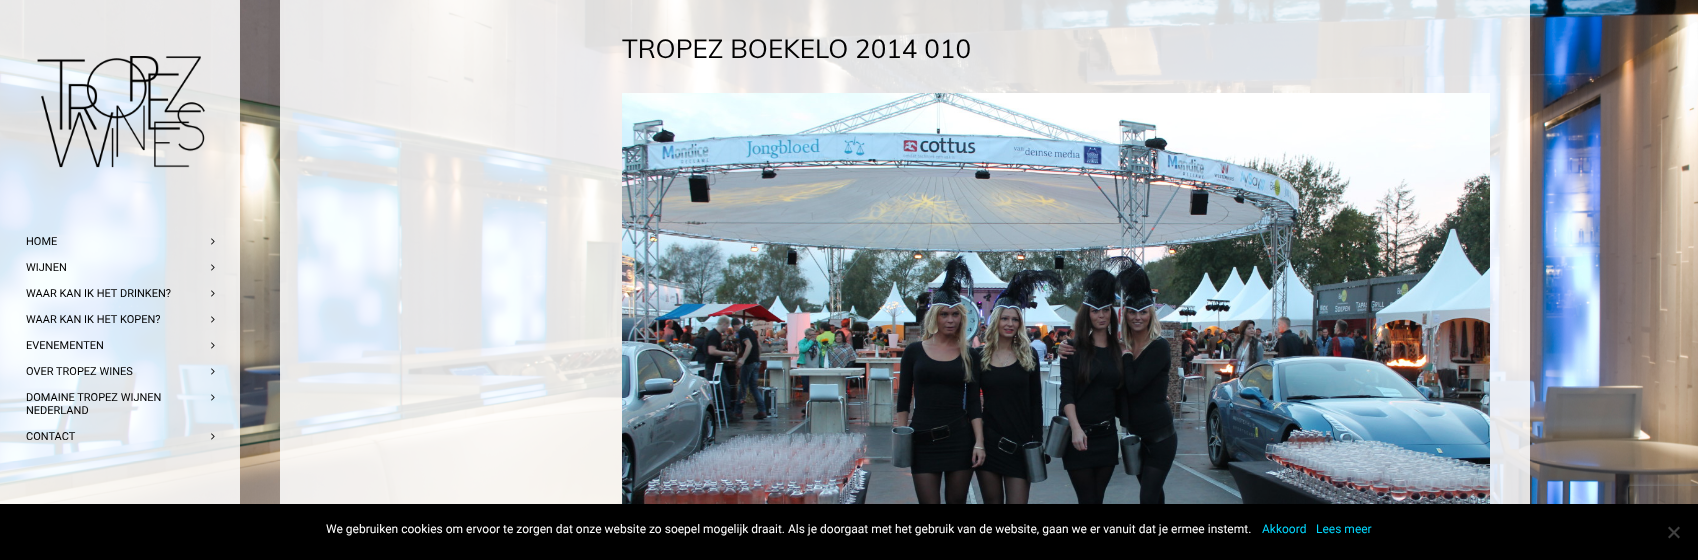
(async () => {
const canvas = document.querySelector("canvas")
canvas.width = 1698
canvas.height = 560
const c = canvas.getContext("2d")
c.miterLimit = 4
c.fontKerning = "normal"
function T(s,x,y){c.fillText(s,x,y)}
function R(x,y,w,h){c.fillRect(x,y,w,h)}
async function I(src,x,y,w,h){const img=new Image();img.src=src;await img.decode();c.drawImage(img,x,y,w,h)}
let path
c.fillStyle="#fff"
R(0,0,1698,560)
await I("1.png",0,0,1698,504)
c.fillStyle="#ffffffd9"
R(280,0,1250,504)
c.font="26px Muli"
c.fillStyle="#000"
T("TROPEZ BOEKELO 2014 010",622,58)
await I("2.png",622,93,868,411)
c.fillStyle="#ffffffd9"
R(0,0,240,504)
await I("3.png",37,56,168,112)
c.font="11px Roboto"
c.fillStyle="#000"
T("HOME",26,245)
await I("4.png",211,238,4,7)
T("WIJNEN",26,271)
await I("5.png",211,264,4,7)
T("WAAR KAN IK HET DRINKEN?",26,297)
await I("6.png",211,290,4,7)
T("WAAR KAN IK HET KOPEN?",26,323)
await I("7.png",211,316,4,7)
T("EVENEMENTEN",26,349)
await I("8.png",211,342,4,7)
T("OVER TROPEZ WINES",26,375)
await I("9.png",211,368,4,7)
T("DOMAINE TROPEZ WIJNEN",26,401)
await I("10.png",211,394,4,7)
T("NEDERLAND",26,414)
T("CONTACT",26,440)
await I("11.png",211,433,4,7)
c.save()
path = new Path2D("M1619 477h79v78h-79zm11 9h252c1 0 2 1 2 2v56c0 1-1 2-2 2h-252c-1 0-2-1-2-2v-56c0-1 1-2 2-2z")
c.clip(path,"evenodd")
c.fillStyle="#808080"
c.filter="blur(2.5px)"
c.beginPath()
c.roundRect(1628,486,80,60,2)
c.fill()
c.filter="none"
c.restore()
R(0,504,1698,56)
c.font="12px Roboto"
c.fillStyle="#fff"
T("We gebruiken cookies om ervoor te zorgen dat onze website zo soepel mogelijk draait. Als je doorgaat met het gebruik van de website, gaan we er vanuit dat je ermee instemt.",326,533)
c.fillStyle="#00d8ff"
T("Akkoord",1262,533)
T("Lees meer",1316,533)
c.fillStyle="#404040"
path = new Path2D("M1678.5 526.5l1.5 1.5l-10.5 10.5l-1.5-1.5z")
c.fill(path)
path = new Path2D("M1668 528l1.5-1.5l10.5 10.5l-1.5 1.5z")
c.fill(path)
})()
